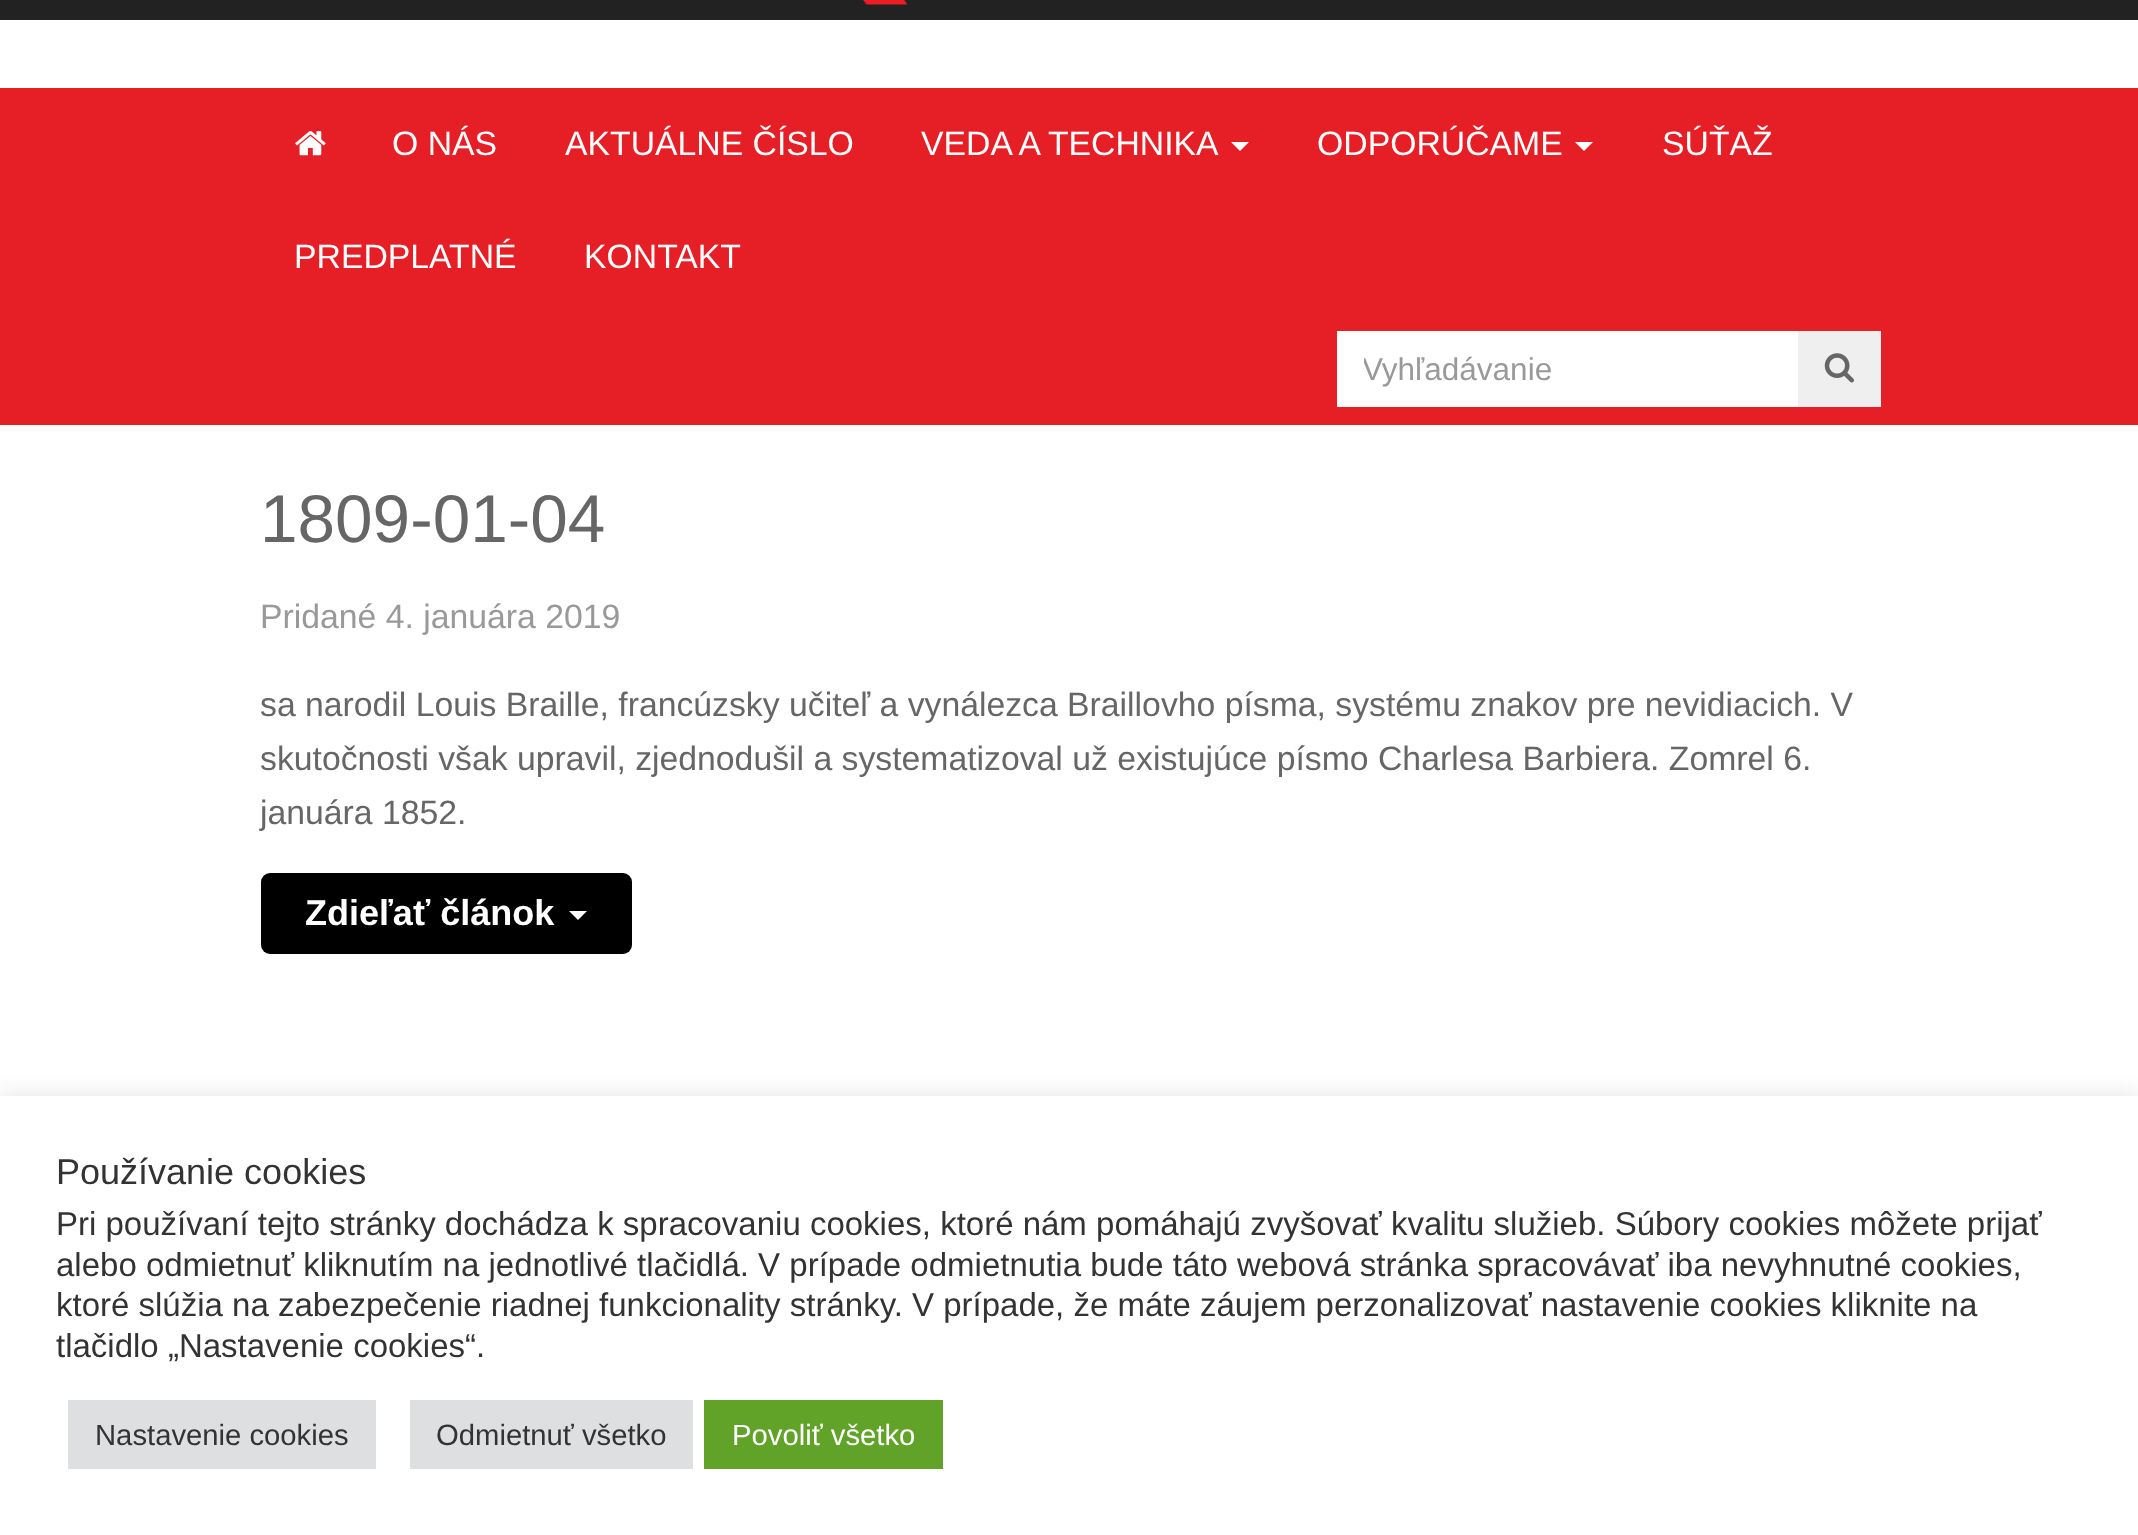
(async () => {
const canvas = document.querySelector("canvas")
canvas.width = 2138
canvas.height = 1535
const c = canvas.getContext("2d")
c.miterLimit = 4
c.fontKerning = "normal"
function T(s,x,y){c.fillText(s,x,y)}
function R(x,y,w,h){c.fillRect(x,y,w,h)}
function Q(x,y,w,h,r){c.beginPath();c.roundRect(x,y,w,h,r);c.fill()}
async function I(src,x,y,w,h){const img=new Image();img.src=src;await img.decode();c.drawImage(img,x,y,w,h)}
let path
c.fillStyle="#fff"
R(0,0,2138,1535)
c.fillStyle="#222"
R(0,0,2138,20)
await I("1.png",863,0,45,5)
c.fillStyle="#e61e26"
R(0,88,2138,337)
await I("2.png",295,131,31,25)
c.font="33.75px Liberation Sans"
c.fillStyle="#fff"
T("O NÁS",392,155)
T("AKTUÁLNE ČÍSLO",565,155)
T("VEDA A TECHNIKA",921,155)
path = new Path2D("M1231 142h18l-9 9z")
c.fill(path)
T("ODPORÚČAME",1317,155)
path = new Path2D("M1575 142h18l-9 9z")
c.fill(path)
T("SÚŤAŽ",1662,155)
T("PREDPLATNÉ",294,268)
T("KONTAKT",584,268)
R(1337,331,461,76)
c.save()
c.beginPath()
c.rect(1364,351,407,36)
c.clip()
c.font="31.5px Liberation Sans"
c.fillStyle="#999"
T("Vyhľadávanie",1362,380)
c.restore()
c.fillStyle="#efefef"
R(1798,331,83,76)
await I("3.png",1824,353,30,30)
c.font="67.5px Liberation Sans"
c.fillStyle="#666"
T("1809-01-04",260,542)
c.font="33.75px Liberation Sans"
c.fillStyle="#999"
T("Pridané 4. januára 2019",260,628)
c.fillStyle="#666"
T("sa narodil Louis Braille, francúzsky učiteľ a vynálezca Braillovho písma, systému znakov pre nevidiacich. V",260,716)
T("skutočnosti však upravil, zjednodušil a systematizoval už existujúce písmo Charlesa Barbiera. Zomrel 6.",260,770)
T("januára 1852.",260,824)
c.fillStyle="#000"
Q(261,873,371,81,9)
c.font="bold 36px Liberation Sans"
c.fillStyle="#fff"
T("Zdieľať článok",305,925)
path = new Path2D("M569 911h18l-9 9z")
c.fill(path)
c.fillStyle="#acabab4d"
c.filter="blur(11px)"
c.beginPath()
c.rect(0,1094,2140,441)
c.fill()
c.filter="none"
c.fillStyle="#fff"
R(0,1096,2138,439)
c.font="36px Liberation Sans"
c.fillStyle="#333"
T("Používanie cookies",56,1184)
c.font="33px Liberation Sans"
T("Pri používaní tejto stránky dochádza k spracovaniu cookies, ktoré nám pomáhajú zvyšovať kvalitu služieb. Súbory cookies môžete prijať",56,1235)
T("alebo odmietnuť kliknutím na jednotlivé tlačidlá. V prípade odmietnutia bude táto webová stránka spracovávať iba nevyhnutné cookies,",56,1276)
T("ktoré slúžia na zabezpečenie riadnej funkcionality stránky. V prípade, že máte záujem perzonalizovať nastavenie cookies kliknite na",56,1316)
T("tlačidlo „Nastavenie cookies“.",56,1357)
c.fillStyle="#dedfe0"
R(68,1400,308,69)
c.font="29.25px Liberation Sans"
c.fillStyle="#333"
T("Nastavenie cookies",95,1445)
c.fillStyle="#dedfe0"
R(410,1400,283,69)
c.fillStyle="#333"
T("Odmietnuť všetko",436,1445)
c.fillStyle="#61a229"
R(704,1400,239,69)
c.fillStyle="#fff"
T("Povoliť všetko",732,1445)
})()
